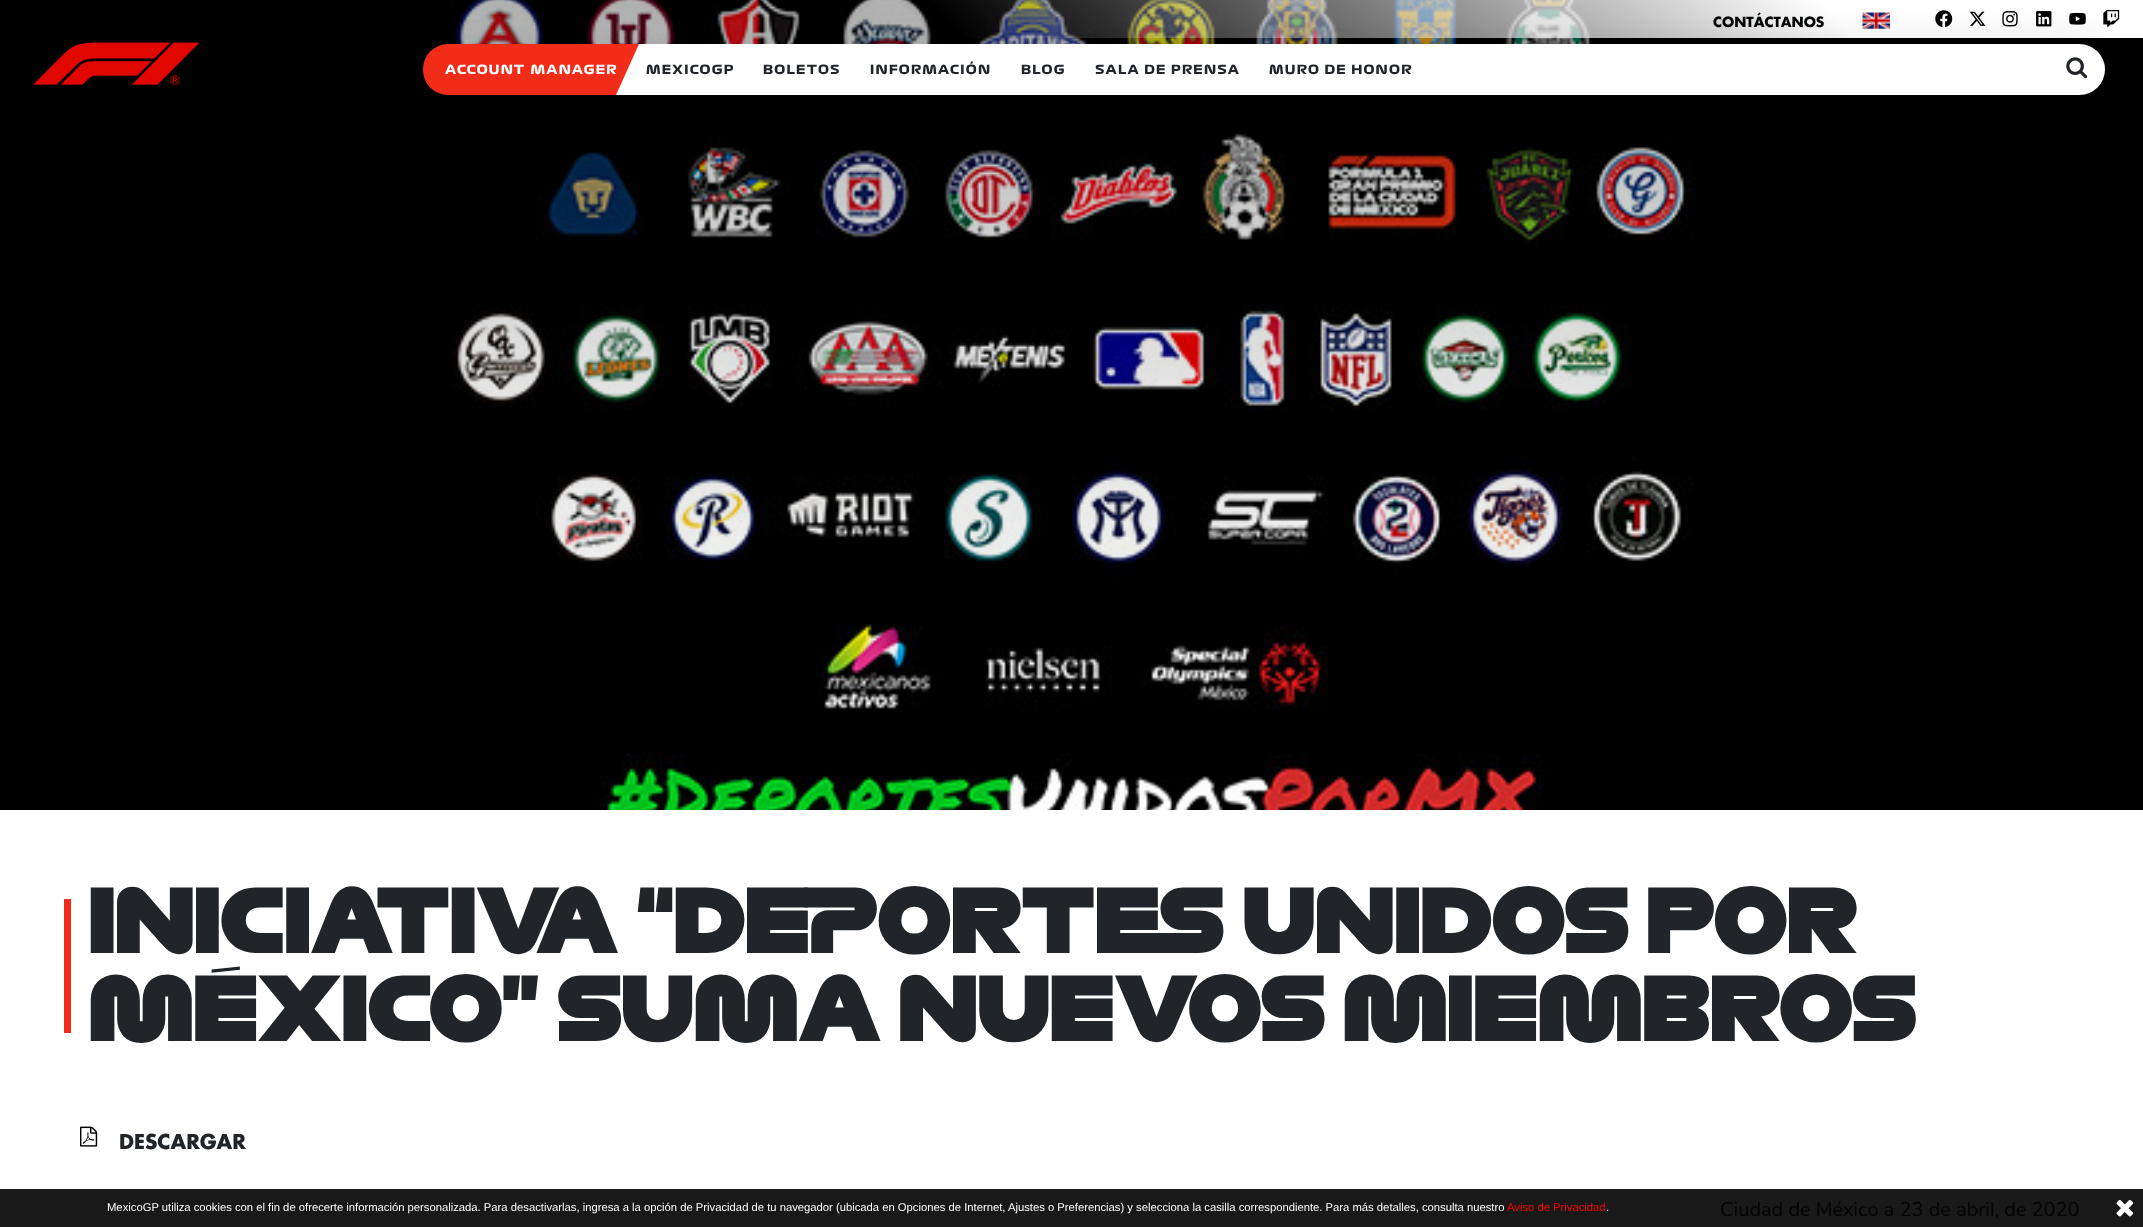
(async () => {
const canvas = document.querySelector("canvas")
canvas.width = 2143
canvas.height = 1227
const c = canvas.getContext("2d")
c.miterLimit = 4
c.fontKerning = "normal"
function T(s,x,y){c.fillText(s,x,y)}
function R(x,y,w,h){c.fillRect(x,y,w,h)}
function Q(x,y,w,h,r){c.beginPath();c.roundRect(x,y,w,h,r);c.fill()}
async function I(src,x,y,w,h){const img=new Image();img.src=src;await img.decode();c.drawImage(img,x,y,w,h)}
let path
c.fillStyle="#fff"
R(0,0,2143,1227)
c.fillStyle="#191919"
R(0,1189,2143,38)
await I("1.png",0,0,2143,810)
c.font="bold 13.75px Futura"
c.fillStyle="#030404"
T("CONTÁCTANOS",1713,27)
await I("2.png",1862,12,28,17)
await I("3.png",1935,10,18,18)
await I("4.png",1969,11,17,15)
await I("5.png",2002,11,16,16)
await I("6.png",2036,11,16,16)
await I("7.png",2069,12,17,13)
await I("8.png",2103,10,17,18)
await I("9.png",33,42,167,43)
c.fillStyle="#00000033"
c.filter="blur(25px)"
c.beginPath()
c.roundRect(433,56,1672,52,26)
c.fill()
c.filter="none"
c.fillStyle="#fff"
Q(433,44,1672,51,25.5)
c.fillStyle="#f12d1a"
Q(423,44,50,51,25)
path = new Path2D("M446 44h193l-23 51h-170z")
c.fill(path)
c.letterSpacing="1.25px"
c.wordSpacing="1px"
c.font="bold 12.5px 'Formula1'"
c.fillStyle="#fff"
T("ACCOUNT MANAGER",445,74)
c.wordSpacing="0px"
c.fillStyle="#212529"
T("MEXICOGP",646,74)
T("BOLETOS",763,74)
T("INFORMACIÓN",870,74)
T("BLOG",1021,74)
T("SALA DE PRENSA",1095,74)
T("MURO DE HONOR",1269,74)
await I("10.png",2066,57,22,22)
c.fillStyle="#f12d1a"
R(64,899,7,134)
c.letterSpacing="0px"
c.font="900 87.5px 'Formula1'"
c.fillStyle="#212529"
T("INICIATIVA “DEPORTES UNIDOS POR",89,953)
T("MÉXICO” SUMA NUEVOS MIEMBROS",89,1041)
await I("11.png",80,1126,18,21)
c.font="bold 20px Futura"
T("DESCARGAR",119,1149)
c.font="20px Nunito Sans"
c.fillStyle="#030404"
T("Ciudad de México a 23 de abril, de 2020",1720,1216)
c.font="11.25px Liberation Sans"
c.fillStyle="#fff"
T("MexicoGP utiliza cookies con el fin de ofrecerte información personalizada. Para desactivarlas, ingresa a la opción de Privacidad de tu navegador (ubicada en Opciones de Internet, Ajustes o Preferencias) y selecciona la casilla correspondiente. Para más detalles, consulta nuestro",107,1211)
c.fillStyle="#f00"
T("Aviso de Privacidad",1507,1211)
c.fillStyle="#fff"
T(".",1606,1211)
await I("12.png",2116,1199,18,18)
})()
